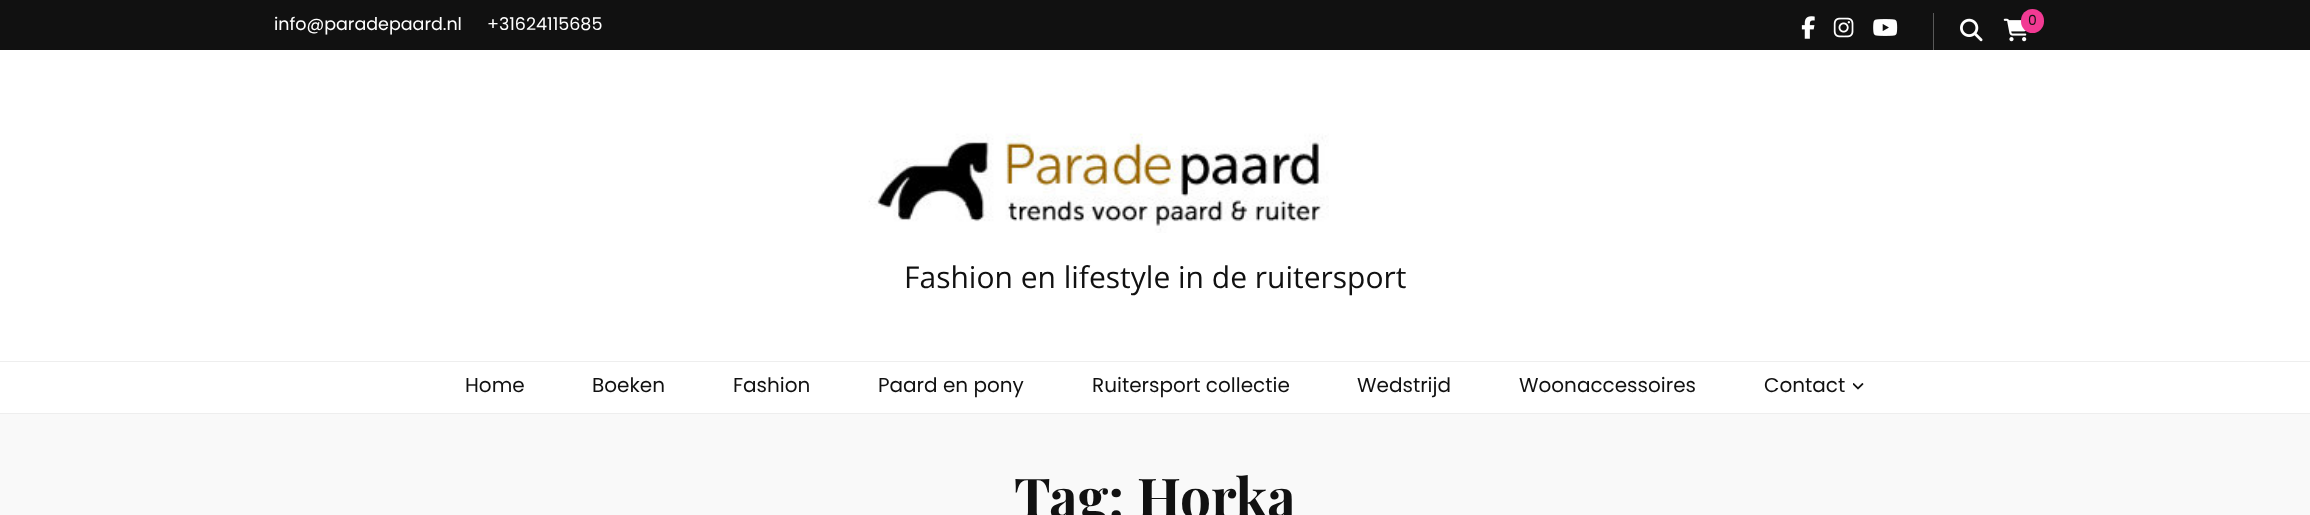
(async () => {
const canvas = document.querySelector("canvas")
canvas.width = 2310
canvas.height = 515
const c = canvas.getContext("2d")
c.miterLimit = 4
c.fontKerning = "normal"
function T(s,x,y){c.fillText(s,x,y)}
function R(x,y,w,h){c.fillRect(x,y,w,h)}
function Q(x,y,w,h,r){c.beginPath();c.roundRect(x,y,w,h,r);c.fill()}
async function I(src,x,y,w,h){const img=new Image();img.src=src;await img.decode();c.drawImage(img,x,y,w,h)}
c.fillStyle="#fff"
R(0,0,2310,515)
c.fillStyle="#111"
R(0,0,2310,50)
c.font="17.5px Poppins"
c.fillStyle="#fff"
T("info@paradepaard.nl",274,30)
T("+31624115685",487,30)
await I("1.png",1801,16,14,23)
await I("2.png",1833,17,21,21)
await I("3.png",1873,19,25,17)
c.fillStyle="#595959"
R(1933,13,1,37)
await I("4.png",1960,18,23,24)
await I("5.png",2003,18,24,24)
c.fillStyle="#f23a93"
Q(2021,9,23,24,11.5)
c.font="14px Poppins"
c.fillStyle="#111"
T("0",2028,25)
await I("6.png",868,133,461,100)
c.font="30px Open Sans"
T("Fashion en lifestyle in de ruitersport",904,288)
c.fillStyle="#eee"
R(0,361,2310,1)
R(0,413,2310,1)
c.font="20px Poppins"
c.fillStyle="#111"
T("Home",465,392)
T("Boeken",592,392)
T("Fashion",733,392)
T("Paard en pony",878,392)
T("Ruitersport collectie",1092,392)
T("Wedstrijd",1357,392)
T("Woonaccessoires",1519,392)
T("Contact",1764,392)
await I("7.png",1853,383,11,7)
c.fillStyle="#f9f9f9"
R(0,414,2310,101)
c.font="bold 55px Playfair Display"
c.fillStyle="#111"
T("Tag: Horka",1014,518)
})()
